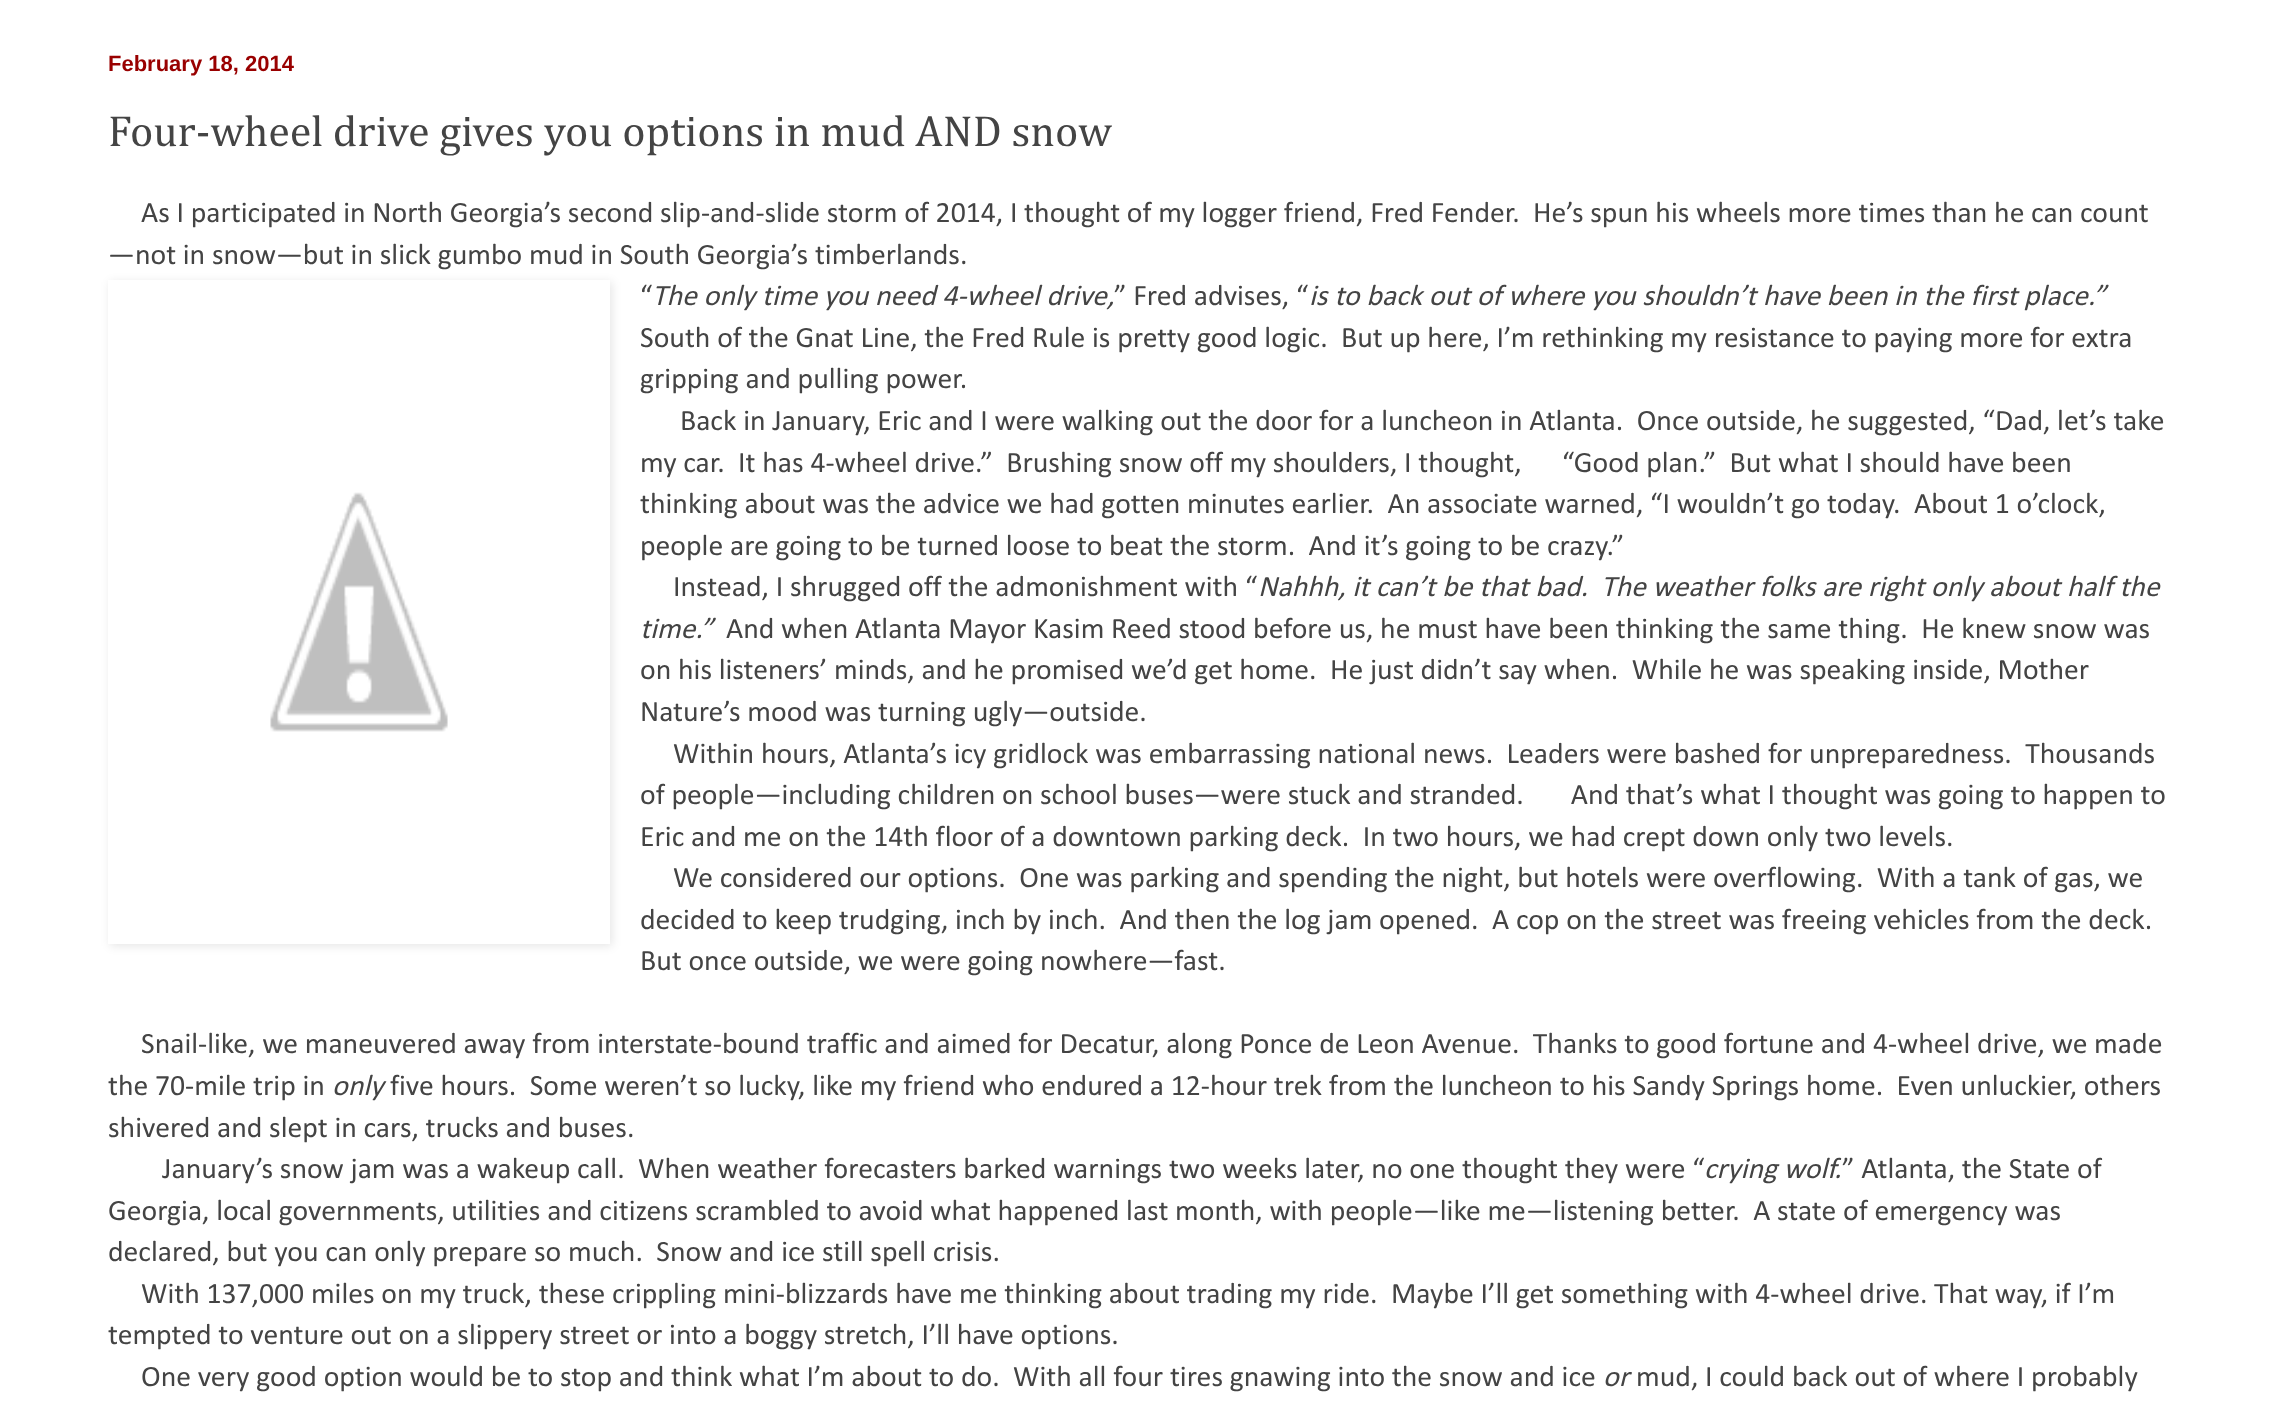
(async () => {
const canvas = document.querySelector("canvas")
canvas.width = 2276
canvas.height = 1406
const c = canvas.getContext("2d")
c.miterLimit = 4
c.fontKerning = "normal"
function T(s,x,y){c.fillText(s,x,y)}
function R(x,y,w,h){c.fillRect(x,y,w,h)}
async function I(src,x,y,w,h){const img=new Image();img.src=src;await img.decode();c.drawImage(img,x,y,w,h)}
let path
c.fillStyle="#fff"
R(0,0,2276,1406)
c.font="bold 22px Liberation Sans"
c.fillStyle="#900"
T("February 18, 2014",108,71)
c.font="44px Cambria"
c.fillStyle="#444"
T("Four-wheel drive gives you options in mud AND snow",108,146)
c.font="29.7px Calibri"
T("As I participated in North Georgia’s second slip-and-slide storm of 2014, I thought of my logger friend, Fred Fender.  He’s spun his wheels more times than he can count",141,222)
T("—not in snow—but in slick gumbo mud in South Georgia’s timberlands.",108,264)
c.save()
path = new Path2D("M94 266h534v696h-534zm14 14h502v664h-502z")
c.clip(path,"evenodd")
c.fillStyle="#0000001a"
c.filter="blur(5px)"
c.beginPath()
c.rect(110,282,502,664)
c.fill()
c.filter="none"
c.restore()
await I("1.png",270,492,178,240)
T("“",640,305)
c.font="italic 29.7px Calibri"
T("The only time you need 4-wheel drive,",652,305)
c.font="29.7px Calibri"
T("” Fred advises, “",1114,305)
c.font="italic 29.7px Calibri"
T("is to back out of where you shouldn’t have been in the first place.”",1309,305)
c.font="29.7px Calibri"
T("South of the Gnat Line, the Fred Rule is pretty good logic.  But up here, I’m rethinking my resistance to paying more for extra",640,347)
T("gripping and pulling power.",640,388)
T("Back in January, Eric and I were walking out the door for a luncheon in Atlanta.  Once outside, he suggested, “Dad, let’s take",680,430)
T("my car.  It has 4-wheel drive.”  Brushing snow off my shoulders, I thought,      “Good plan.”  But what I should have been",640,472)
T("thinking about was the advice we had gotten minutes earlier.  An associate warned, “I wouldn’t go today.  About 1 o’clock,",640,513)
T("people are going to be turned loose to beat the storm.  And it’s going to be crazy.”",640,555)
T("Instead, I shrugged off the admonishment with “",673,596)
c.font="italic 29.7px Calibri"
T("Nahhh, it can’t be that bad.",1258,596)
T("The weather folks are right only about half the",1601,596)
T("time.”",640,638)
c.font="29.7px Calibri"
T("And when Atlanta Mayor Kasim Reed stood before us, he must have been thinking the same thing.  He knew snow was",726,638)
T("on his listeners’ minds, and he promised we’d get home.  He just didn’t say when.  While he was speaking inside, Mother",640,679)
T("Nature’s mood was turning ugly—outside.",640,721)
T("Within hours, Atlanta’s icy gridlock was embarrassing national news.  Leaders were bashed for unpreparedness.  Thousands",673,763)
T("of people—including children on school buses—were stuck and stranded.       And that’s what I thought was going to happen to",640,804)
T("Eric and me on the 14th floor of a downtown parking deck.  In two hours, we had crept down only two levels.",640,846)
T("We considered our options.  One was parking and spending the night, but hotels were overflowing.  With a tank of gas, we",673,887)
T("decided to keep trudging, inch by inch.  And then the log jam opened.  A cop on the street was freeing vehicles from the deck.",640,929)
T("But once outside, we were going nowhere—fast.",640,970)
T("Snail-like, we maneuvered away from interstate-bound traffic and aimed for Decatur, along Ponce de Leon Avenue.  Thanks to good fortune and 4-wheel drive, we made",141,1053)
T("the 70-mile trip in",108,1095)
c.font="italic 29.7px Calibri"
T("only",332,1095)
c.font="29.7px Calibri"
T("five hours.  Some weren’t so lucky, like my friend who endured a 12-hour trek from the luncheon to his Sandy Springs home.  Even unluckier, others",390,1095)
T("shivered and slept in cars, trucks and buses.",108,1137)
T("January’s snow jam was a wakeup call.  When weather forecasters barked warnings two weeks later, no one thought they were “",162,1178)
c.font="italic 29.7px Calibri"
T("crying wolf.",1704,1178)
c.font="29.7px Calibri"
T("” Atlanta, the State of",1842,1178)
T("Georgia, local governments, utilities and citizens scrambled to avoid what happened last month, with people—like me—listening better.  A state of emergency was",108,1220)
T("declared, but you can only prepare so much.  Snow and ice still spell crisis.",108,1261)
T("With 137,000 miles on my truck, these crippling mini-blizzards have me thinking about trading my ride.  Maybe I’ll get something with 4-wheel drive. That way, if I’m",141,1303)
T("tempted to venture out on a slippery street or into a boggy stretch, I’ll have options.",108,1344)
T("One very good option would be to stop and think what I’m about to do.  With all four tires gnawing into the snow and ice",141,1386)
c.font="italic 29.7px Calibri"
T("or",1603,1386)
c.font="29.7px Calibri"
T("mud, I could back out of where I probably",1636,1386)
})()
